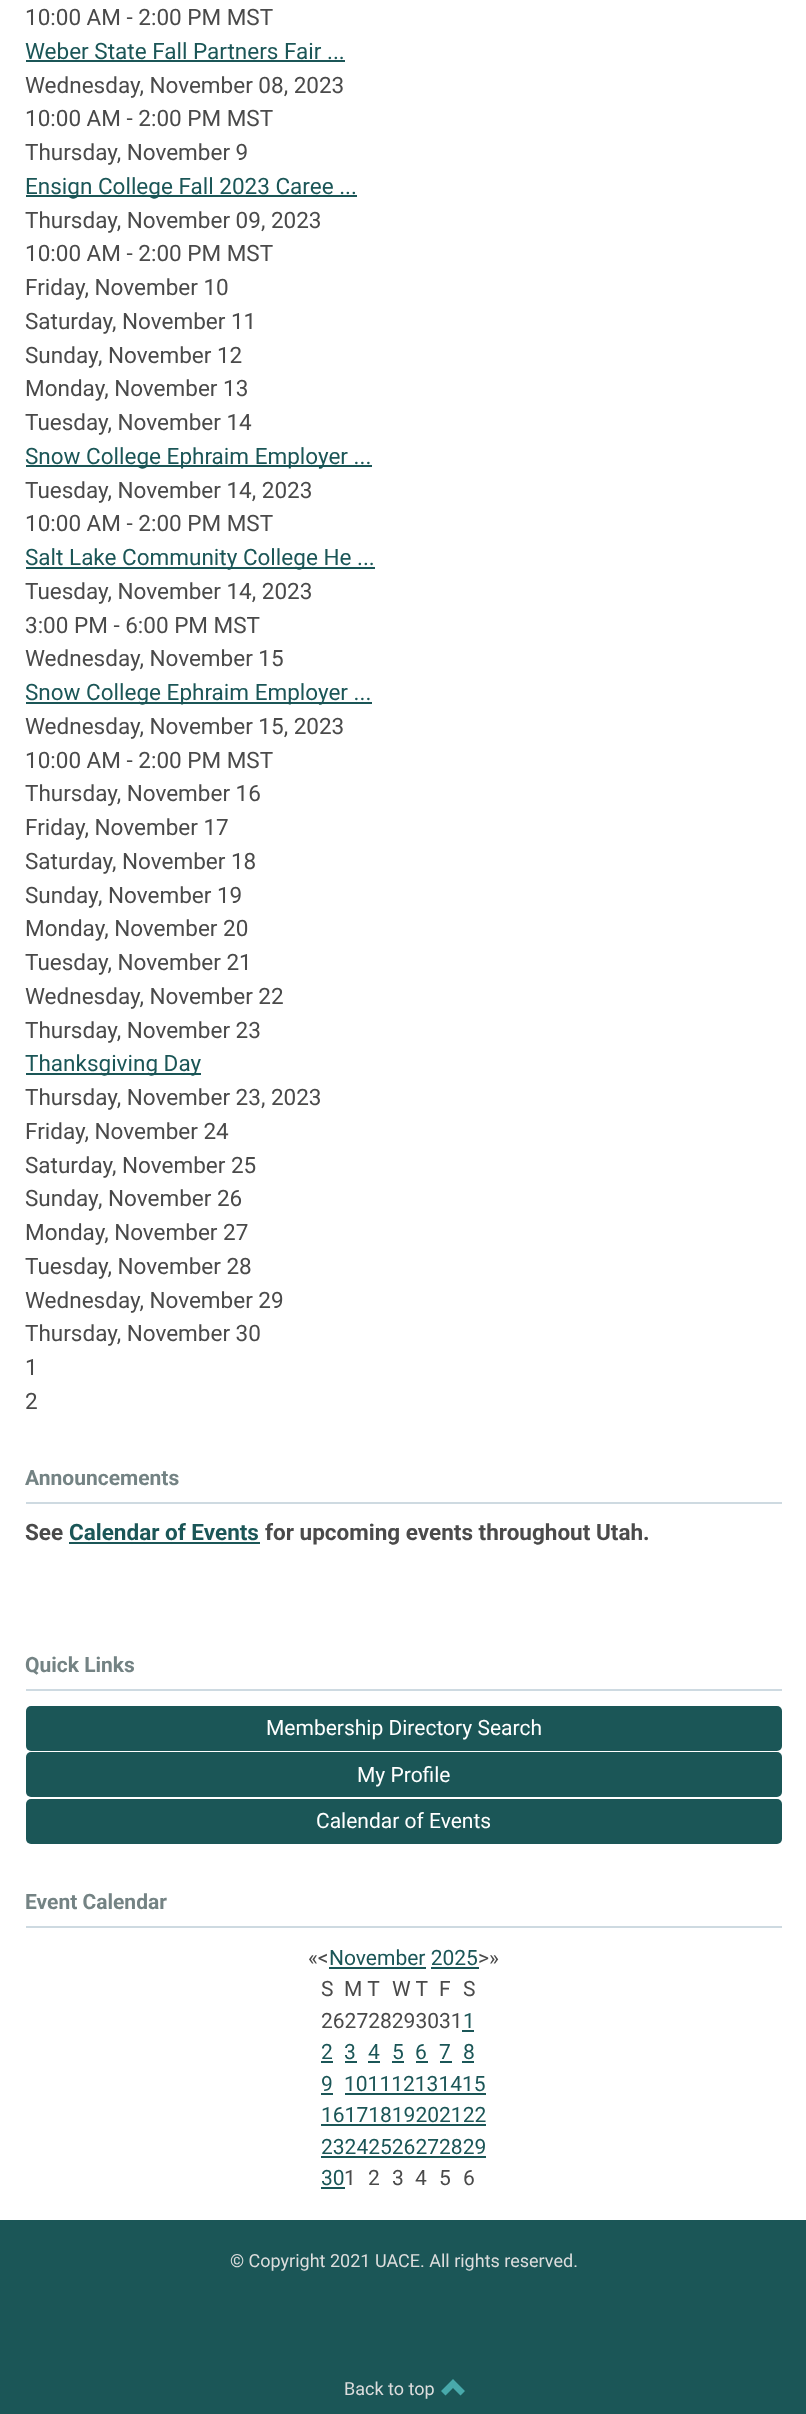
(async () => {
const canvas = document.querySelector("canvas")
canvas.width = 806
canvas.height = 2414
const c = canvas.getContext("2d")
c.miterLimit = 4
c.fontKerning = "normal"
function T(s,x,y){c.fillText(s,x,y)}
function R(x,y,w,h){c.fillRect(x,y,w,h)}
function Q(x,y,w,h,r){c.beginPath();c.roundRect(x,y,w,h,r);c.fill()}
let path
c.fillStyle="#fff"
R(0,0,806,2414)
c.font="22.5px Roboto"
c.fillStyle="#4a4a4a"
T("10:00 AM - 2:00 PM MST",25,25)
c.fillStyle="#1b5657"
T("Weber State Fall Partners Fair ...",25,59)
R(26,60,319,2)
c.fillStyle="#4a4a4a"
T("Wednesday, November 08, 2023",25,93)
T("10:00 AM - 2:00 PM MST",25,126)
T("Thursday, November 9",25,160)
c.fillStyle="#1b5657"
R(26,195,331,2)
T("Ensign College Fall 2023 Caree ...",25,194)
c.fillStyle="#4a4a4a"
T("Thursday, November 09, 2023",25,228)
T("10:00 AM - 2:00 PM MST",25,261)
T("Friday, November 10",25,295)
T("Saturday",25,329)
T(", November 11",112,329)
T("Sunday",25,363)
T(", November 12",98,363)
T("Monday, November 13",25,396)
T("Tuesday, November 14",25,430)
c.fillStyle="#1b5657"
R(26,465,346,2)
T("Snow College Ephraim Employer ...",25,464)
c.fillStyle="#4a4a4a"
T("Tuesday, November 14, 2023",25,498)
T("10:00 AM - 2:00 PM MST",25,531)
c.fillStyle="#1b5657"
R(26,567,349,2)
T("Salt Lake Community College He ...",25,565)
c.fillStyle="#4a4a4a"
T("Tuesday, November 14, 2023",25,599)
T("3:00 PM - 6:00 PM MST",25,633)
T("Wednesday, November 15",25,666)
c.fillStyle="#1b5657"
R(26,702,346,2)
T("Snow College Ephraim Employer ...",25,700)
c.fillStyle="#4a4a4a"
T("Wednesday, November 15, 2023",25,734)
T("10:00 AM - 2:00 PM MST",25,768)
T("Thursday, November 16",25,801)
T("Friday, November 17",25,835)
T("Saturday",25,869)
T(", November 18",112,869)
T("Sunday",25,903)
T(", November 19",98,903)
T("Monday, November 20",25,936)
T("Tuesday, November 21",25,970)
T("Wednesday, November 22",25,1004)
T("Thursday, November 23",25,1038)
c.fillStyle="#1b5657"
R(26,1073,175,2)
T("Thanksgiving Day",25,1071)
c.fillStyle="#4a4a4a"
T("Thursday, November 23, 2023",25,1105)
T("Friday, November 24",25,1139)
T("Saturday",25,1173)
T(", November 25",112,1173)
T("Sunday",25,1206)
T(", November 26",98,1206)
T("Monday, November 27",25,1240)
T("Tuesday, November 28",25,1274)
T("Wednesday, November 29",25,1308)
T("Thursday, November 30",25,1341)
T("1",25,1375)
T("2",25,1409)
c.fillStyle="#cedae1"
R(26,1502,756,2)
c.font="bold 21px Roboto"
c.fillStyle="#748384"
T("Announcements",25,1485)
c.font="bold 22.5px Roboto"
c.fillStyle="#4a4a4a"
T("See",25,1540)
c.fillStyle="#1b5657"
T("Calendar of Events",69,1540)
R(69,1542,191,2)
c.fillStyle="#4a4a4a"
T("for upcoming events throughout Utah.",265,1540)
c.fillStyle="#cedae1"
R(26,1689,756,2)
c.font="bold 21px Roboto"
c.fillStyle="#748384"
T("Quick Links",25,1672)
c.fillStyle="#1b5657"
Q(26,1706,756,45,5)
c.font="21px Roboto"
c.fillStyle="#fff"
T("Membership Directory Search",266,1735)
c.fillStyle="#1b5657"
Q(26,1752,756,45,5)
c.fillStyle="#fff"
T("My Profile",357,1782)
c.fillStyle="#1b5657"
Q(26,1799,756,45,5)
c.fillStyle="#fff"
T("Calendar of Events",316,1828)
c.fillStyle="#cedae1"
R(26,1926,756,2)
c.font="bold 21px Roboto"
c.fillStyle="#748384"
T("Event Calendar",25,1909)
c.font="21px Roboto"
c.fillStyle="#4a4a4a"
T("«<",308,1965)
c.fillStyle="#1b5657"
T("November 2025",329,1965)
R(329,1967,97,2)
R(431,1967,48,2)
c.fillStyle="#4a4a4a"
T(">»",478,1965)
T("S",321,1996)
T("M T",344,1996)
T("W T",392,1996)
T("F",439,1996)
T("S",463,1996)
T("262728293031",321,2028)
c.fillStyle="#1b5657"
T("1",463,2028)
R(462,2030,12,2)
T("2",321,2059)
R(321,2061,12,2)
T("3",344,2059)
R(345,2061,12,2)
T("4",368,2059)
R(368,2061,12,2)
T("5",392,2059)
R(392,2061,12,2)
T("6",415,2059)
R(416,2061,12,2)
T("7",439,2059)
R(440,2061,12,2)
T("8",463,2059)
R(462,2061,12,2)
T("9",321,2091)
R(321,2093,12,2)
T("101112131415",344,2091)
R(345,2093,141,2)
T("16171819202122",321,2122)
R(321,2124,165,2)
T("23242526272829",321,2154)
R(321,2156,165,2)
T("30",321,2185)
R(321,2187,24,2)
c.fillStyle="#4a4a4a"
T("1",344,2185)
T("2",368,2185)
T("3",392,2185)
T("4",415,2185)
T("5",439,2185)
T("6",463,2185)
c.fillStyle="#1b5657"
R(0,2220,806,194)
c.font="18px Roboto"
c.fillStyle="#ddd"
T("© Copyright 2021 UACE. All rights reserved.",230,2267)
T("Back to top",344,2395)
c.fillStyle="#48a9ab"
path = new Path2D("M441 2391l4.5 4.5l7.5-7.5l7.5 7.5l4.5-4.5l-12-12z")
c.fill(path)
})()
